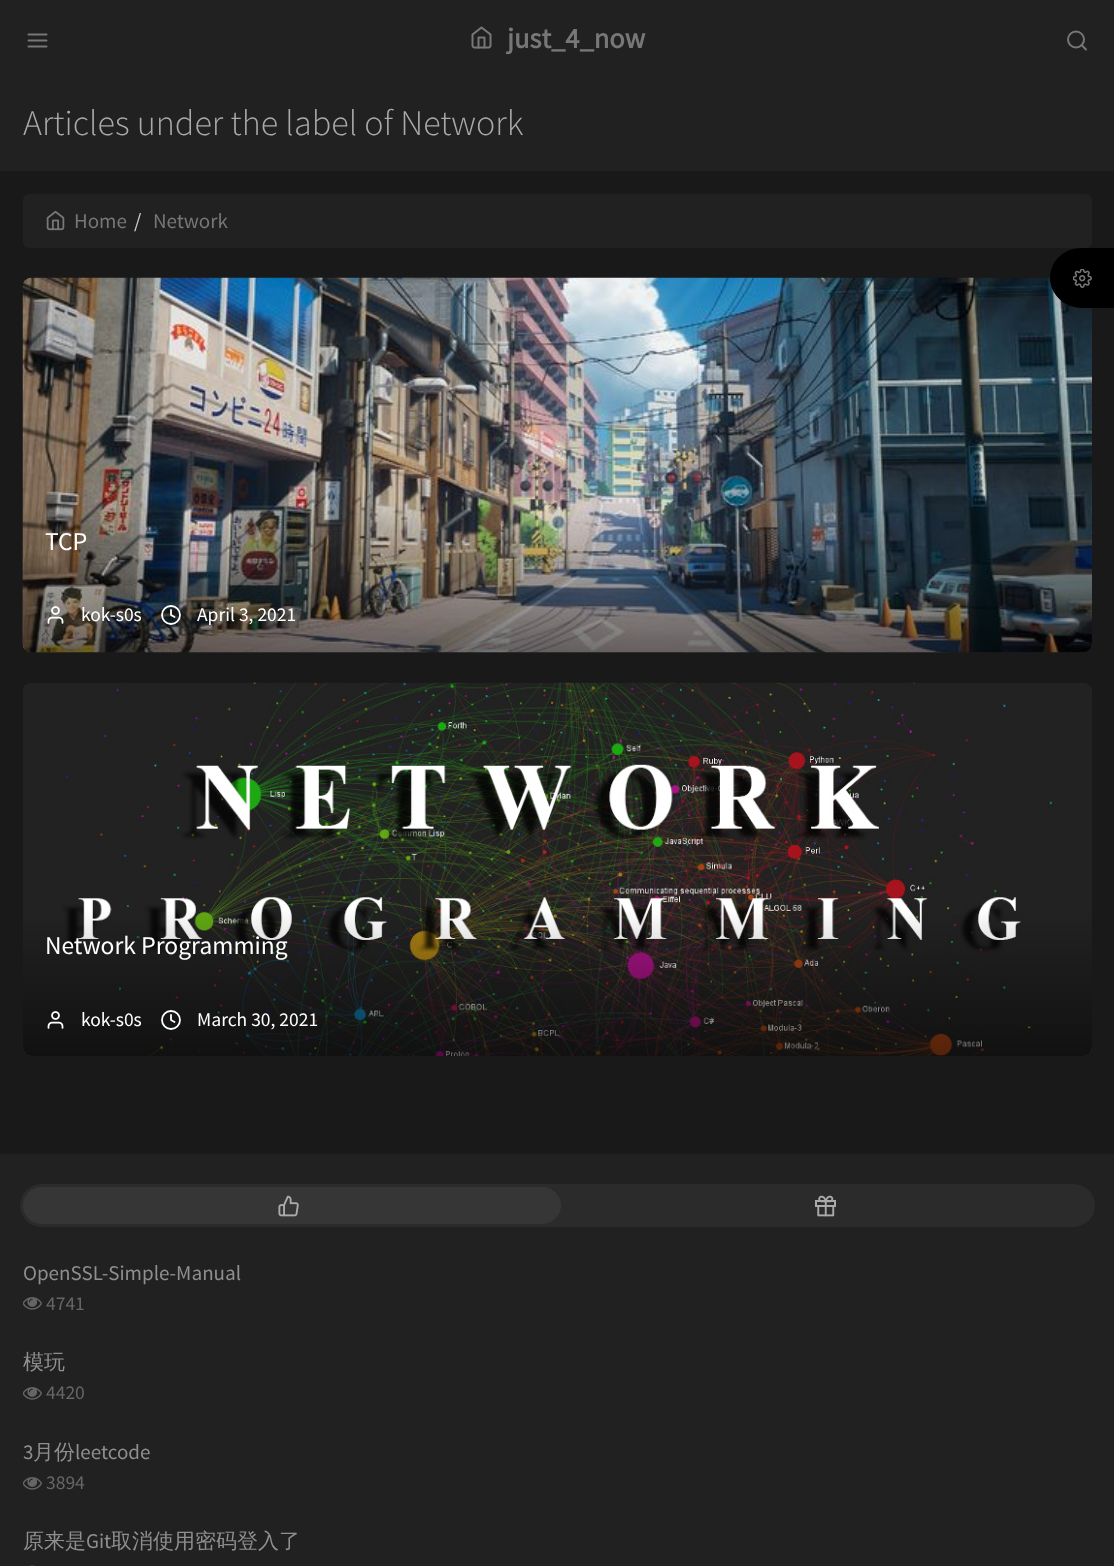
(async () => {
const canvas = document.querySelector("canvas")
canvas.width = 1114
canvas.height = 1566
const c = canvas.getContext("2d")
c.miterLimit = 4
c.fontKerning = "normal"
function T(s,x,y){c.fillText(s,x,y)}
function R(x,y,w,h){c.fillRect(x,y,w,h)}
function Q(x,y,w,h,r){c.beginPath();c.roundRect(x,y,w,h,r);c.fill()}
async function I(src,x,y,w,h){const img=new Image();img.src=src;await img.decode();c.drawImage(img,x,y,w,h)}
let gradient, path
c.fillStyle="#191919"
R(0,0,1114,1566)
c.fillStyle="#212121"
R(0,0,1114,171)
path = new Path2D("M28.5 40.5h18m-18-6h18m-18 12h18")
c.strokeStyle="#777"
c.lineWidth=2
c.lineCap="round"
c.lineJoin="round"
c.stroke(path)
await I("1.png",471,26,21,23)
c.font="bold 28.5px Source Sans Pro"
c.fillStyle="#777"
T("just_4_now",507,48)
c.beginPath()
c.arc(1076,39.5,8,0,7)
c.stroke()
path = new Path2D("M1086 49.5l-4.5-4.5")
c.stroke(path)
c.font="300 36px Source Sans Pro"
c.fillStyle="#aaa"
T("Articles under the label of Network",23,135)
c.fillStyle="#212121"
Q(23,194,1069,54,6)
await I("2.png",46,210,19,21)
c.font="21px Source Sans Pro"
c.fillStyle="#777"
T("Home",74,228)
c.fillStyle="#ccc"
T("/",134,228)
c.fillStyle="#777"
T("Network",153,228)
c.fillStyle="#212121"
Q(23,278,1069,375,9)
c.fillStyle="#6e788233"
Q(23,278,1069,375,9)
c.fillStyle="#7878781a"
Q(23,278,1069,375,9)
await I("3.png",22,277,1070,376)
gradient = c.createLinearGradient(557,505,557,653)
gradient.addColorStop(0,"#00000000")
gradient.addColorStop(1,"#00000080")
c.fillStyle = gradient
c.beginPath()
c.roundRect(23,506,1069,147,[0,0,9,9])
c.fill()
c.font="25.5px Source Sans Pro"
c.fillStyle="#fff"
T("TCP",45,550)
await I("4.png",47,606,17,18)
c.font="19.5px Source Sans Pro"
T("kok-s0s",81,621)
c.beginPath()
c.arc(171,615,9,0,7)
c.strokeStyle="#fff"
c.lineWidth=1.8
c.stroke()
T("April 3, 2021",197,621)
path = new Path2D("M171 610v5l3.5 2")
c.stroke(path)
c.fillStyle="#212121"
Q(23,683,1069,373,9)
c.fillStyle="#6e788233"
Q(23,683,1069,373,9)
c.fillStyle="#7878781a"
Q(23,683,1069,373,9)
await I("5.png",23,682,1069,374)
gradient = c.createLinearGradient(557,909,557,1056)
gradient.addColorStop(0,"#00000000")
gradient.addColorStop(1,"#00000080")
c.fillStyle = gradient
c.beginPath()
c.roundRect(23,909,1069,147,[0,0,9,9])
c.fill()
c.font="25.5px Source Sans Pro"
c.fillStyle="#fff"
T("Network Programming",45,954)
await I("6.png",47,1011,17,18)
c.font="19.5px Source Sans Pro"
T("kok-s0s",81,1026)
c.beginPath()
c.arc(171,1020,9,0,7)
c.stroke()
T("March 30, 2021",197,1026)
path = new Path2D("M171 1015v5l3.5 2")
c.stroke(path)
c.fillStyle="#212121"
R(0,1154,1114,412)
c.fillStyle="#2b2b2b"
Q(20,1184,1075,43,21.5)
c.fillStyle="#363636"
Q(23,1187,538,37,18.5)
await I("7.png",278,1195,21,22)
await I("8.png",815,1195,21,22)
c.font="21px Source Sans Pro"
c.fillStyle="#8f8f8f"
T("OpenSSL-Simple-Manual",23,1280)
await I("9.png",23,1297,19,13)
c.font="19.5px Source Sans Pro"
c.fillStyle="#666"
T("4741",46,1310)
c.font="500 21px WenQuanYi Zen Hei"
c.fillStyle="#8f8f8f"
T("模玩",23,1369)
await I("9.png",23,1387,19,13)
c.font="19.5px Source Sans Pro"
c.fillStyle="#666"
T("4420",46,1399)
c.font="21px Source Sans Pro"
c.fillStyle="#8f8f8f"
T("3",23,1459)
c.font="500 21px WenQuanYi Zen Hei"
T("月份",33,1459)
c.font="21px Source Sans Pro"
T("leetcode",75,1459)
await I("9.png",23,1477,19,13)
c.font="19.5px Source Sans Pro"
c.fillStyle="#666"
T("3894",46,1489)
c.font="500 21px WenQuanYi Zen Hei"
c.fillStyle="#8f8f8f"
T("原来是",23,1548)
c.font="21px Source Sans Pro"
T("Git",86,1548)
c.font="500 21px WenQuanYi Zen Hei"
T("取消使用密码登入了",111,1548)
await I("10.png",30,1565,5,1)
c.fillStyle="#000"
path = new Path2D("M1082 248h32v60h-32c-18 0-32-14-32-30c0-17 14-30 32-30z")
c.fill(path)
await I("11.png",1073,269,19,19)
})()
